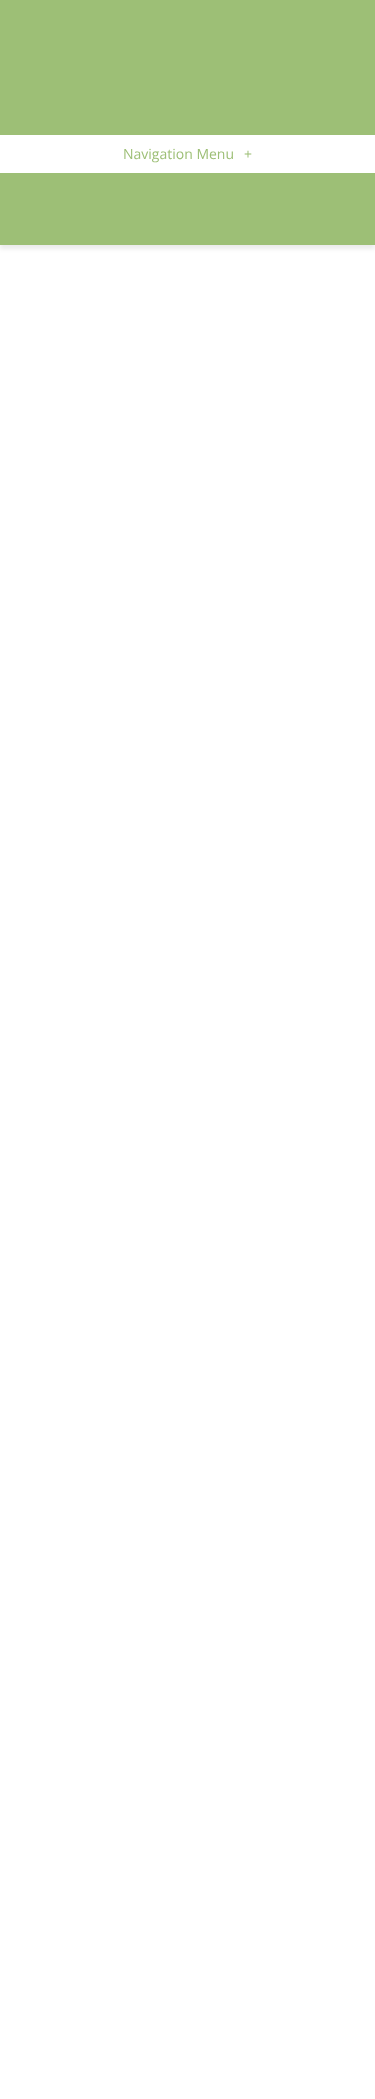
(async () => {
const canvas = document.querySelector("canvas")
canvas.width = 375
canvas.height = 2099
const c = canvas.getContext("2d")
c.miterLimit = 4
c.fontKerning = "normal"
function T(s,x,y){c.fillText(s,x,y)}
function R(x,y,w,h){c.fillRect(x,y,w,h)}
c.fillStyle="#fff"
R(0,0,375,2099)
c.fillStyle="#00000014"
c.filter="blur(2px)"
c.beginPath()
c.rect(0,4,375,245)
c.fill()
c.filter="none"
c.fillStyle="#9dbf76"
R(0,0,375,245)
c.fillStyle="#fff"
R(0,135,375,38)
c.font="14px Open Sans"
c.fillStyle="#9dbf76"
T("Navigation Menu",123,159)
T("+",244,159)
})()
